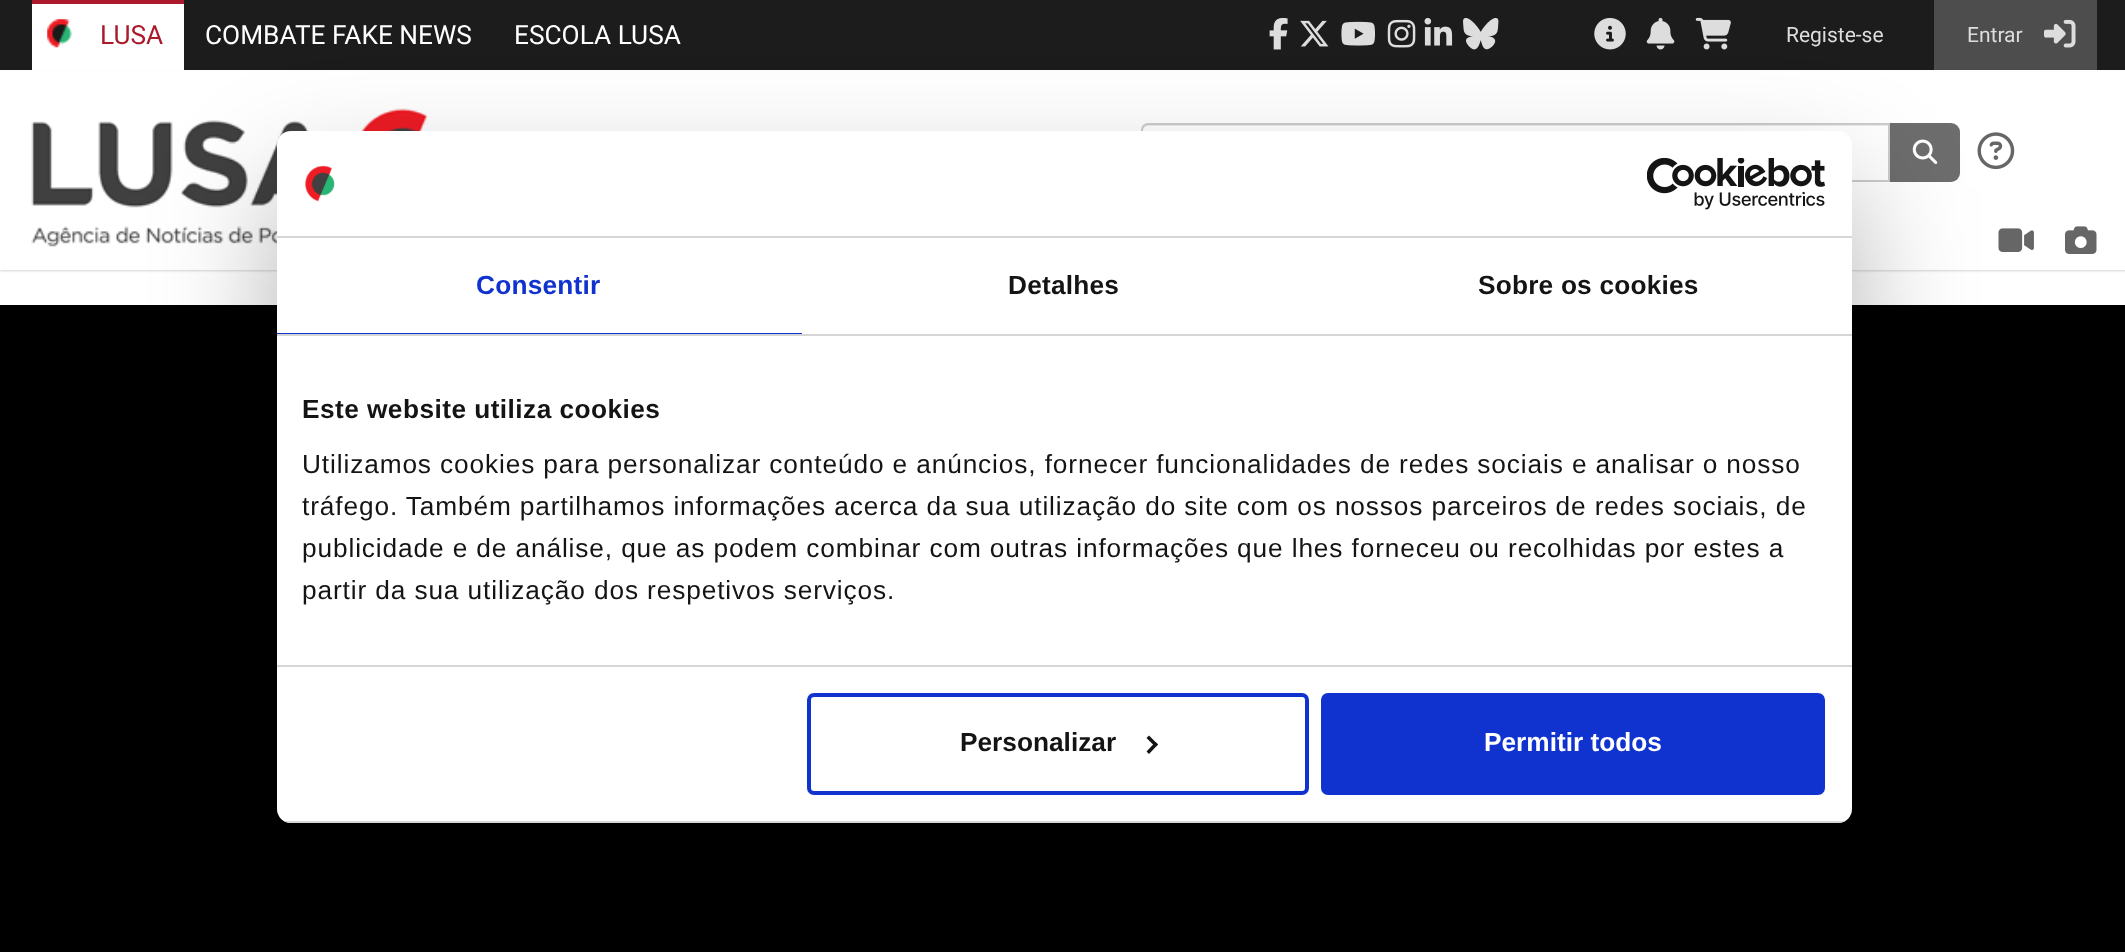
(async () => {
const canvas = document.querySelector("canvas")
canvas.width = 2125
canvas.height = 952
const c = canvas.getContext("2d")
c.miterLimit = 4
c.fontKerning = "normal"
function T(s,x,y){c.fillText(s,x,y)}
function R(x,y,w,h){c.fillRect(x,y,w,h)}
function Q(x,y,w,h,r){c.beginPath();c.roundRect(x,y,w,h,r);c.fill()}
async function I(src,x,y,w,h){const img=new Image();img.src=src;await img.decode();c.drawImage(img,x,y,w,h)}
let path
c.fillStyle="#fff"
R(0,0,2125,952)
c.fillStyle="#1c1c1c"
R(0,0,2125,70)
c.fillStyle="#d3d3d3"
c.filter="blur(1px)"
c.beginPath()
c.rect(0,72,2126,199)
c.fill()
c.filter="none"
c.fillStyle="#fff"
R(32,4,152,66)
c.fillStyle="#aa1a2b"
R(32,0,152,4)
await I("1.png",47,19,26,29)
c.font="26.25px Roboto"
T("LUSA",100,44)
c.fillStyle="#fff"
T("COMBATE FAKE NEWS",205,44)
T("ESCOLA LUSA",514,44)
await I("2.png",1269,17,19,33)
await I("3.png",1300,20,29,27)
await I("4.png",1341,21,34,25)
await I("5.png",1387,19,29,29)
await I("6.png",1424,17,29,29)
await I("7.png",1463,18,36,32)
await I("8.png",1594,17,32,33)
await I("9.png",1646,17,29,33)
await I("10.png",1695,17,36,33)
c.font="21px Roboto"
c.fillStyle="#ddd"
T("Registe-se",1786,42)
c.fillStyle="#4e4d4d"
R(1934,0,163,70)
c.fillStyle="#ddd"
T("Entrar",1967,42)
await I("11.png",2044,19,32,29)
c.fillStyle="#fff"
R(0,71,2125,199)
await I("12.png",31,108,403,139)
c.fillStyle="#ececec"
path = new Path2D("M1148 126h740v-2h-740c-3 0-5 2-5 5v2c0-3 2-5 5-5z")
c.fill(path)
c.beginPath()
c.roundRect(1142,124,747,57,[6,0,0,6])
c.strokeStyle="#ccc"
c.lineWidth=2
c.stroke()
c.fillStyle="#6d6d6d"
c.beginPath()
c.roundRect(1890,123,70,59,[0,9,9,0])
c.fill()
await I("13.png",1912,139,26,25)
await I("14.png",1977,132,38,38)
await I("15.png",1998,228,36,24)
await I("16.png",2065,226,32,28)
c.fillStyle="#000"
R(0,305,2125,647)
c.fillStyle="#0000004d"
c.filter="blur(59.5px)"
c.beginPath()
c.roundRect(277,187,1575,692,14)
c.fill()
c.filter="none"
c.fillStyle="#fff"
Q(277,131,1575,692,14)
c.fillStyle="#d6d6d6"
R(277,236,1575,2)
await I("17.png",304,165,31,37)
await I("18.png",1647,158,178,52)
R(277,334,1575,2)
c.fillStyle="#1032cf"
R(277,333,525,1)
c.letterSpacing="0.2px"
c.font="bold 26.25px Liberation Sans"
T("Consentir",476,294)
c.fillStyle="#141414"
T("Detalhes",1008,294)
T("Sobre os cookies",1478,294)
c.fillStyle="#d6d6d6"
R(277,665,1575,2)
c.letterSpacing="0.45px"
c.fillStyle="#141414"
T("Este website utiliza cookies",302,418)
c.letterSpacing="0.88px"
c.font="26.25px Liberation Sans"
T("Utilizamos cookies para personalizar conteúdo e anúncios, fornecer funcionalidades de redes sociais e analisar o nosso",302,473)
T("tráfego. Também partilhamos informações acerca da sua utilização do site com os nossos parceiros de redes sociais, de",302,515)
T("publicidade e de análise, que as podem combinar com outras informações que lhes forneceu ou recolhidas por estes a",302,557)
T("partir da sua utilização dos respetivos serviços.",302,599)
c.save()
c.beginPath()
c.roundRect(277,131,1575,692,14)
c.clip()
c.fillStyle="#d6d6d6"
R(277,821,1575,2)
c.restore()
c.beginPath()
c.roundRect(809,695,498,98,5)
c.strokeStyle="#1032cf"
c.lineWidth=4
c.stroke()
c.letterSpacing="0px"
c.font="bold 26.25px Liberation Sans"
T("Personalizar",960,751)
path = new Path2D("M1149 735.5l9 9l-2.5 2.5l-9-9z")
c.fill(path)
path = new Path2D("M1155.5 742l2.5 2.5l-9 9.5l-2.5-2.5z")
c.fill(path)
c.fillStyle="#1032cf"
c.beginPath()
c.roundRect(1323,695,500,98,5)
c.fill()
c.stroke()
c.fillStyle="#fff"
T("Permitir todos",1484,751)
})()
